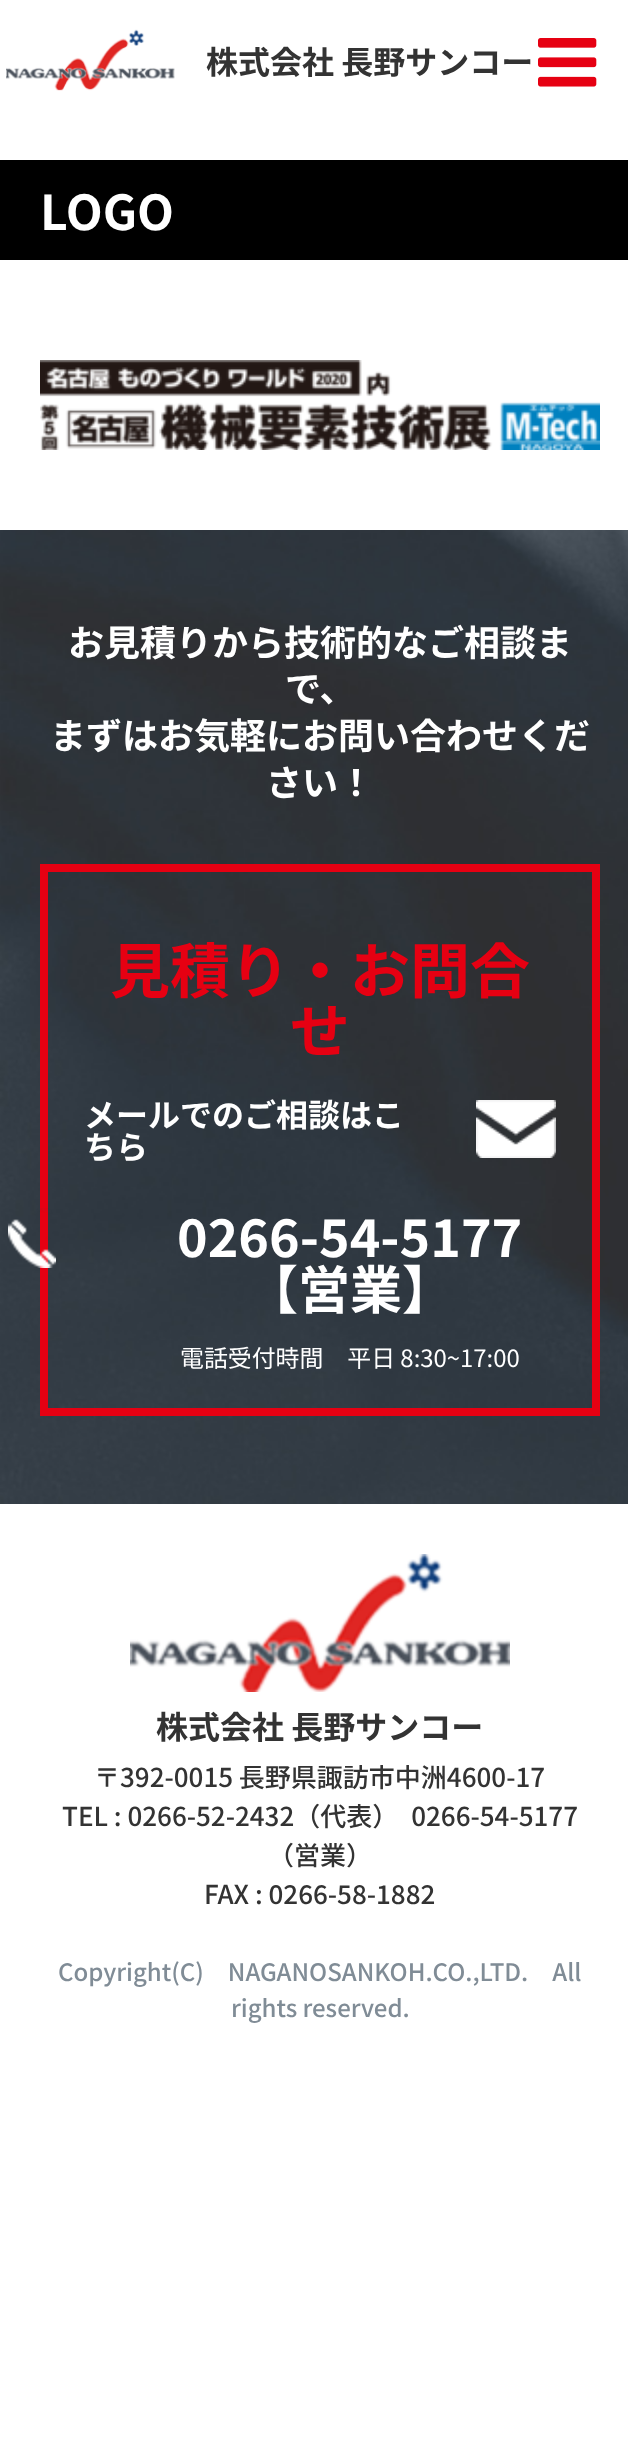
(async () => {
const canvas = document.querySelector("canvas")
canvas.width = 628
canvas.height = 2463
const c = canvas.getContext("2d")
c.miterLimit = 4
c.fontKerning = "normal"
function T(s,x,y){c.fillText(s,x,y)}
function R(x,y,w,h){c.fillRect(x,y,w,h)}
async function I(src,x,y,w,h){const img=new Image();img.src=src;await img.decode();c.drawImage(img,x,y,w,h)}
c.fillStyle="#fff"
R(0,0,628,2463)
await I("1.png",6,29,169,62)
c.font="bold 32px Noto Sans JP"
c.fillStyle="#333"
T("株式会社 長野サンコー",206,74)
await I("2.png",538,38,59,49)
c.fillStyle="#000"
R(0,160,628,100)
c.font="bold 48px Noto Sans JP"
c.fillStyle="#fff"
T("LOGO",40,230)
await I("3.png",40,360,560,90)
await I("4.png",0,530,628,974)
c.font="bold 36px Noto Sans JP"
T("お見積りから技術的なご相談ま",68,656)
T("で、",285,702)
T("まずはお気軽にお問い合わせくだ",50,749)
T("さい！",266,796)
c.strokeStyle="#e60012"
c.lineWidth=8
c.strokeRect(44,868,552,544)
c.font="bold 60px Noto Sans JP"
c.fillStyle="#e60012"
T("見積り・お問合",110,993)
T("せ",290,1053)
c.font="bold 32px Noto Sans JP"
c.fillStyle="#fff"
T("メールでのご相談はこ",84,1127)
await I("5.png",476,1100,80,58)
T("ちら",84,1159)
await I("6.png",8,1208,48,60)
c.font="bold 52px Noto Sans JP"
T("0266-54-5177",177,1257)
T("【営業】",246,1309)
c.font="23.9px Noto Sans JP"
T("電話受付時間　平日 8:30~17:00",180,1367)
await I("7.png",130,1554,380,138)
c.font="bold 32px Noto Sans JP"
c.fillStyle="#333"
T("株式会社 長野サンコー",156,1739)
c.font="500 26px Noto Sans JP"
T("〒392-0015 長野県諏訪市中洲4600-17",94,1787)
T("TEL : 0266-52-2432（代表）　0266-54-5177",62,1826)
T("（営業）",268,1865)
T("FAX : 0266-58-1882",204,1904)
c.font="500 24px Noto Sans JP"
c.fillStyle="#808c96"
T("Copyright(C)　NAGANOSANKOH.CO.,LTD.　All",58,1981)
T("rights reserved.",231,2017)
})()
